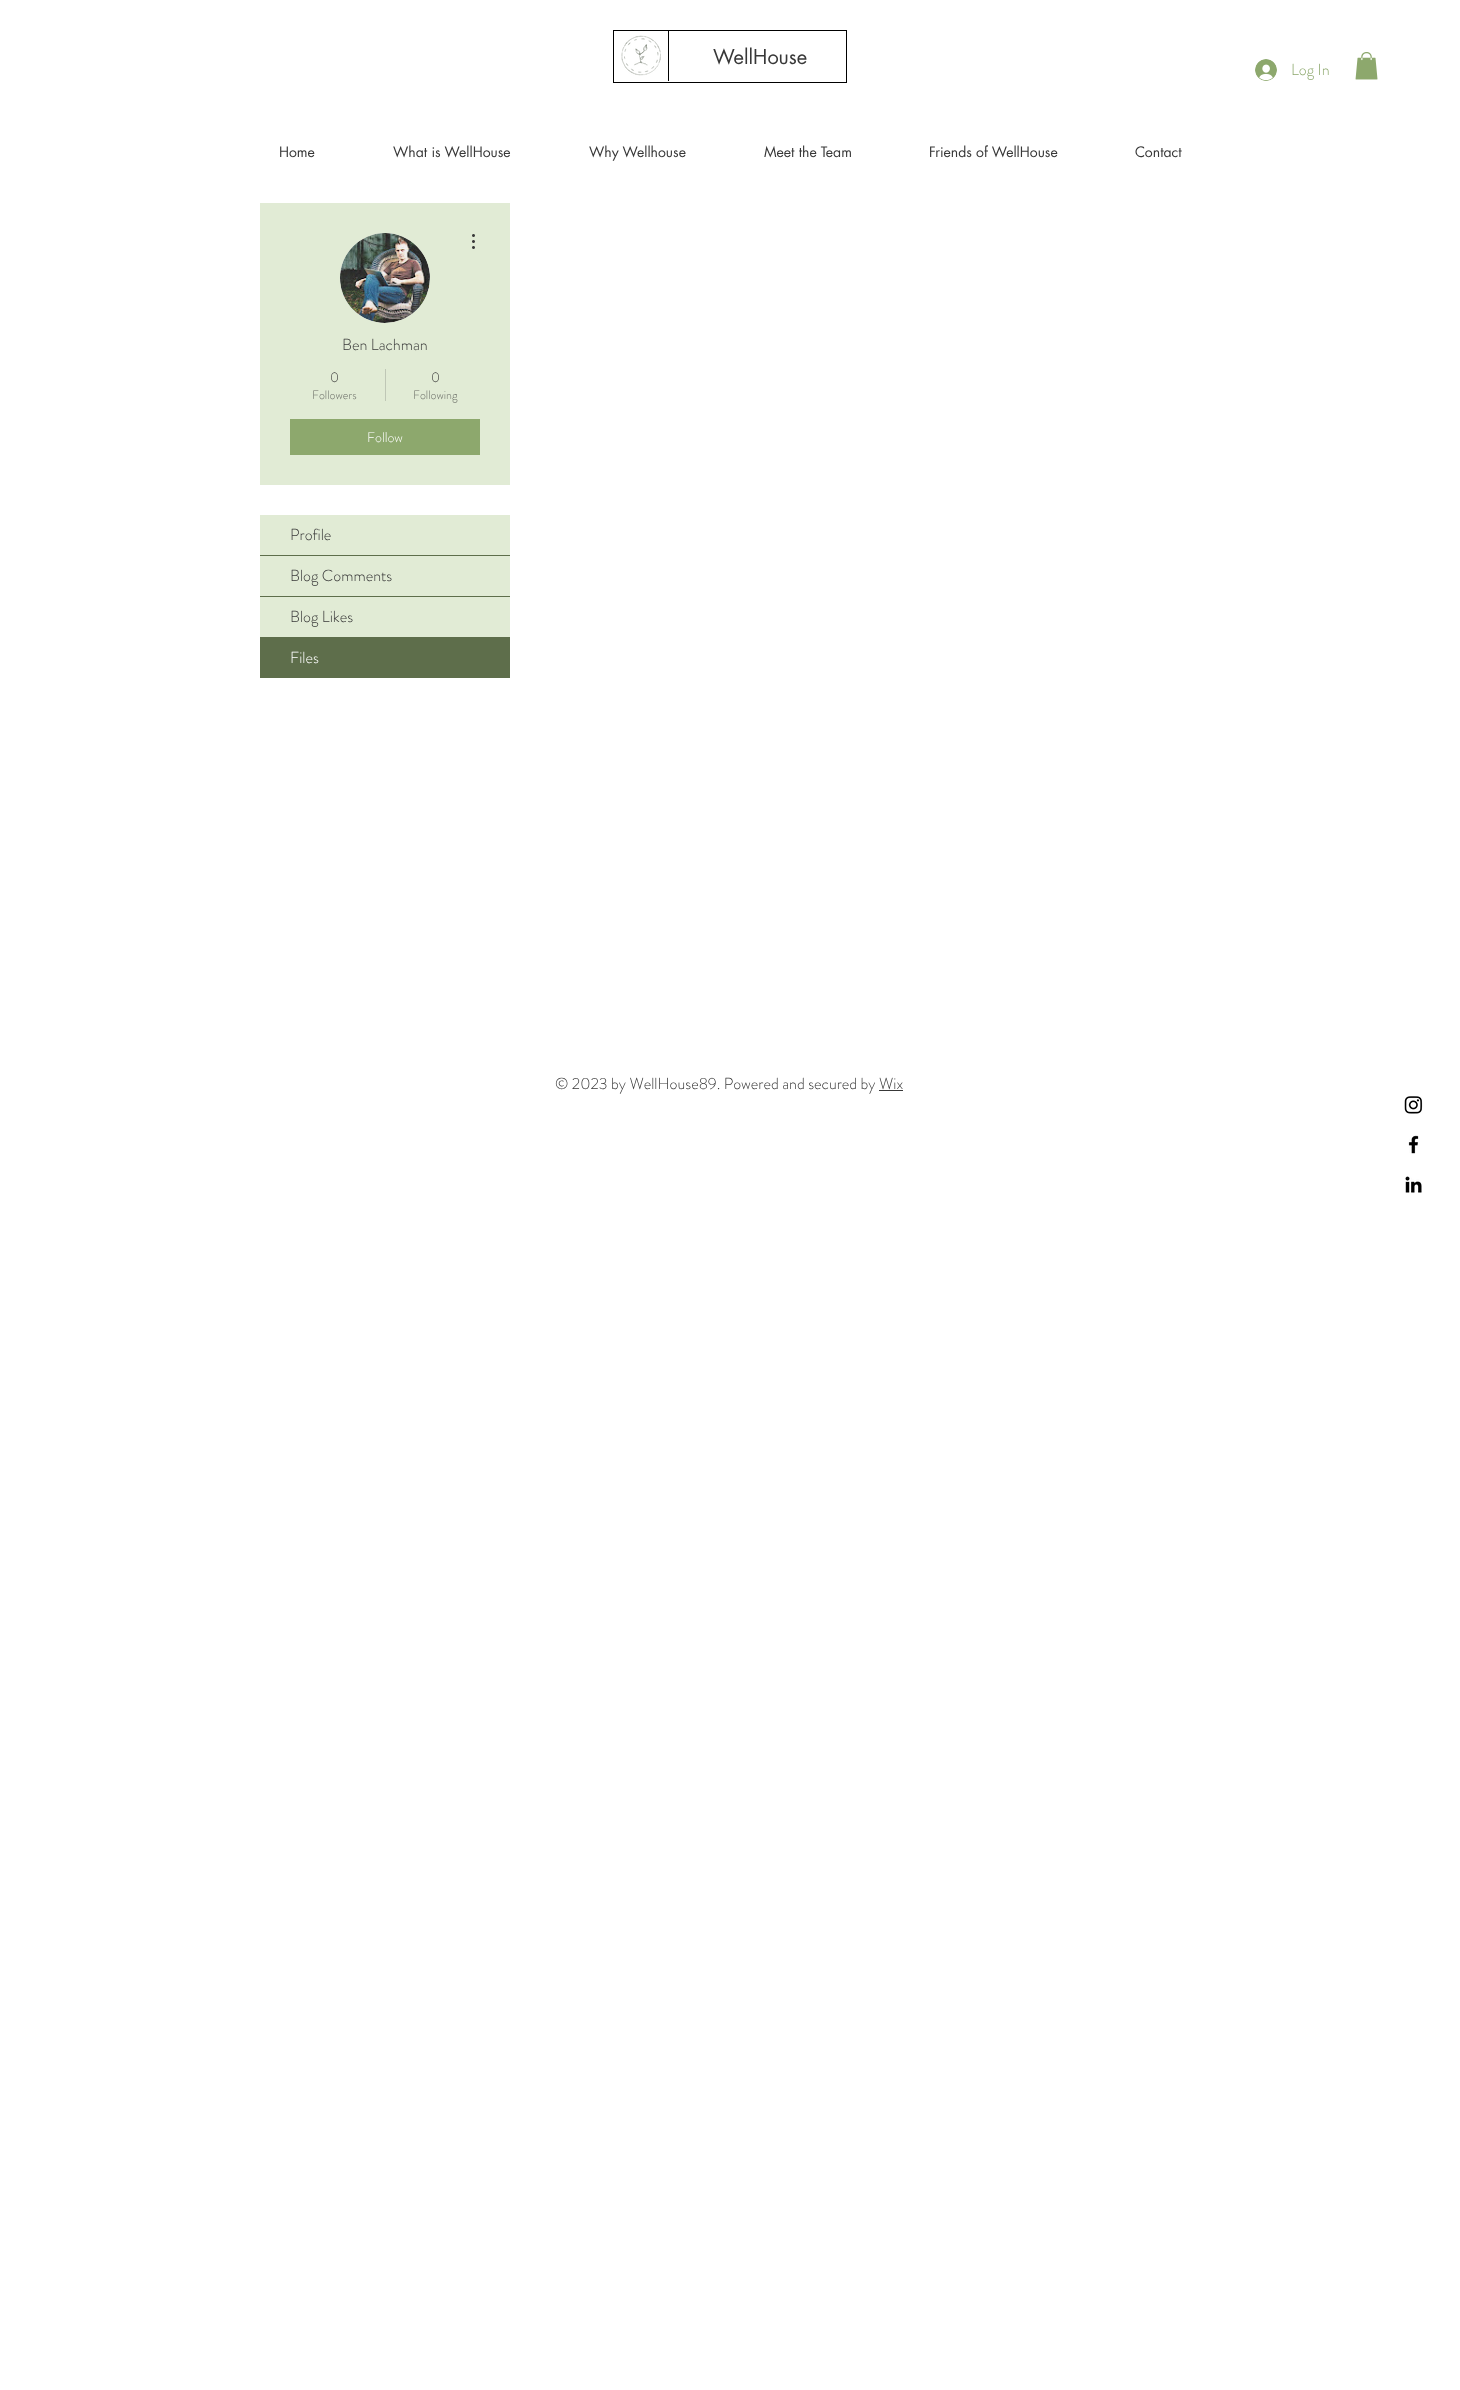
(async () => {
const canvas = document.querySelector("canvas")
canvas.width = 1460
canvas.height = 2390
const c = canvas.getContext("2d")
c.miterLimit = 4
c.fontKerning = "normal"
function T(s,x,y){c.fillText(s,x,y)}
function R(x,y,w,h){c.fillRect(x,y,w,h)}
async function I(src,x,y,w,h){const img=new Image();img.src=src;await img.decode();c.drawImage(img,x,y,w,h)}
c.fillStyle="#fff"
R(0,0,1460,2390)
c.strokeStyle="#000"
c.strokeRect(613.5,30.5,233,52)
await I("1.png",621,35,40,41)
c.fillStyle="#000"
R(668,31,1,50)
c.font="20px futura"
c.fillStyle="#383838"
T("WellHouse",713,64)
c.font="14px futura"
T("Home",279,157)
T("What is WellHouse",393,157)
T("Why Wellhouse",589,157)
T("Meet the Team",764,157)
T("Friends of WellHouse",929,157)
T("Contact",1135,157)
await I("2.png",1255,59,22,22)
c.font="300 16px 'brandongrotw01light'"
c.fillStyle="#8da86d"
T("Log In",1291,75)
await I("3.png",1355,52,23,28)
c.fillStyle="#e1ebd5"
R(260,203,250,282)
c.fillStyle="#d8d8d8"
c.beginPath()
c.arc(385,278,45,0,7)
c.fill()
await I("4.png",340,233,90,90)
await I("5.png",472,234,3,15)
c.fillStyle="#383838"
T("Ben Lachman",342,350)
c.font="300 14px 'brandongrotw01light'"
T("0",330,382)
c.font="300 12px 'brandongrotw01light'"
c.fillStyle="#6b6e67"
T("Followers",312,399)
c.fillStyle="#bfc7b6"
R(385,369,1,32)
c.font="300 14px 'brandongrotw01light'"
c.fillStyle="#383838"
T("0",431,382)
c.font="300 12px 'brandongrotw01light'"
c.fillStyle="#6b6e67"
T("Following",413,399)
c.fillStyle="#8da86d"
R(290,419,190,36)
c.font="300 14px 'brandongrotw01light'"
c.fillStyle="#fff"
T("Follow",367,442)
c.fillStyle="#5e6e4b"
R(260,555,250,1)
c.fillStyle="#e1ebd5"
R(260,515,250,40)
c.font="300 16px 'brandongrotw01light'"
c.fillStyle="#383838"
T("Profile",290,540)
c.fillStyle="#5e6e4b"
R(260,596,250,1)
c.fillStyle="#e1ebd5"
R(260,556,250,40)
c.fillStyle="#383838"
T("Blog Comments",290,581)
c.fillStyle="#5e6e4b"
R(260,637,250,41)
c.fillStyle="#e1ebd5"
R(260,597,250,40)
c.fillStyle="#383838"
T("Blog Likes",290,622)
c.fillStyle="#fff"
T("Files",290,663)
c.fillStyle="#383838"
T("© 2023 by WellHouse89. Powered and secured by Wix",555,1089)
R(879,1090,24,1)
await I("6.png",1404,1096,19,18)
await I("7.png",1408,1135,11,19)
await I("8.png",1405,1176,17,17)
})()
